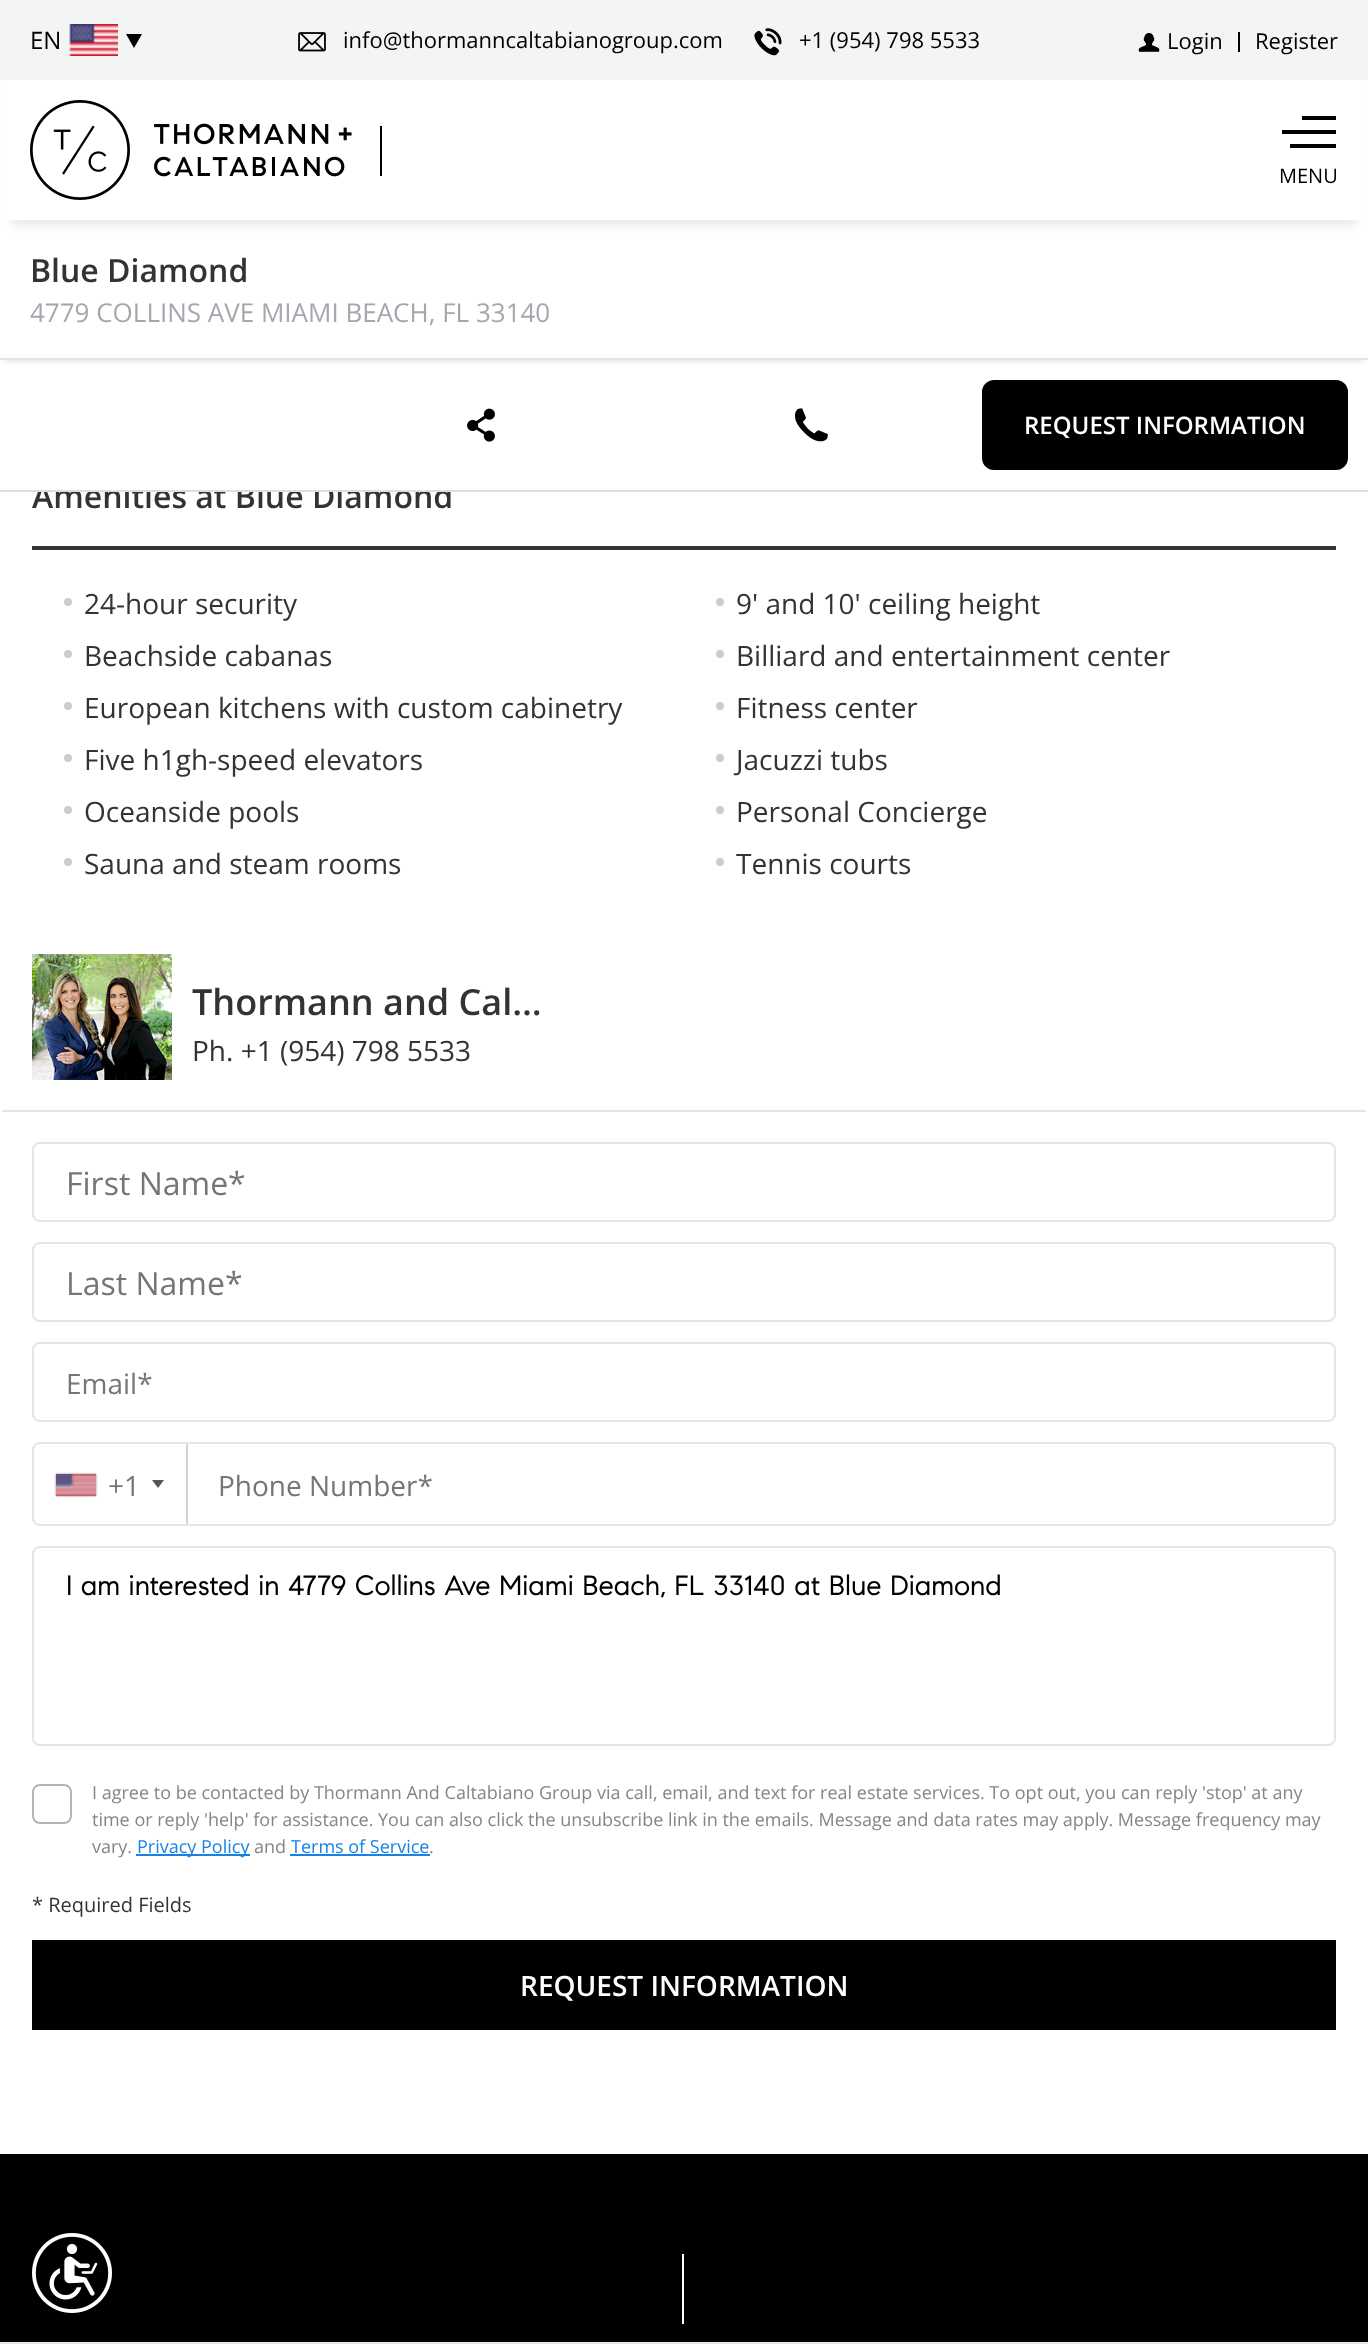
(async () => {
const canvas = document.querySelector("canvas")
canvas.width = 1368
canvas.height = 2344
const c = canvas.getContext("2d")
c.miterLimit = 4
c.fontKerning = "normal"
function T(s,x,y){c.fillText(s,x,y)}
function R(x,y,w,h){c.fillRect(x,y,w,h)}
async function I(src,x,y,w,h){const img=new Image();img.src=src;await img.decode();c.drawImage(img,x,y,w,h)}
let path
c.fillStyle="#fff"
R(0,0,1368,2344)
c.fillStyle="#00000029"
c.filter="blur(3px)"
c.beginPath()
c.rect(4,228,1360,132)
c.fill()
c.filter="none"
c.fillStyle="#fff"
R(0,223,1368,135)
c.fillStyle="#0000001a"
c.filter="blur(6px)"
c.beginPath()
c.rect(12,28,1344,196)
c.fill()
c.filter="none"
c.fillStyle="#fff"
R(4,80,1360,140)
c.fillStyle="#f3f4f4"
R(0,0,1368,80)
c.font="24px Open Sans"
c.fillStyle="#000"
T("EN",30,49)
await I("1.png",69,24,49,32)
path = new Path2D("M126 34h16l-8 14z")
c.fill(path)
await I("2.png",298,32,28,20)
c.font="22px Open Sans"
T("info@thormanncaltabianogroup.com",343,48)
await I("3.png",754,28,28,28)
T("+1 (954) 798 5533",799,48)
await I("4.png",1138,33,22,19)
T("Login",1167,49)
R(1238,32,2,20)
T("Register",1255,49)
await I("5.png",30,100,322,100)
R(380,126,2,50)
R(1302,116,34,4)
R(1282,130,54,4)
R(1290,144,46,4)
c.font="20px Open Sans"
T("MENU",1279,183)
c.fillStyle="#e5e5e5"
R(0,358,1368,2)
c.font="600 32px Open Sans"
c.fillStyle="#333"
T("Blue Diamond",30,282)
c.font="26px Open Sans"
c.fillStyle="#a7a6ae"
T("4779 COLLINS AVE MIAMI BEACH, FL 33140",30,322)
c.font="600 32px Open Sans"
c.fillStyle="#333"
T("Amenities at Blue Diamond",32,508)
c.fillStyle="#fff"
R(38,483,413,7)
c.fillStyle="#dedede"
R(0,490,1368,2)
await I("6.png",467,408,28,34)
await I("7.png",795,408,33,34)
c.fillStyle="#000"
c.beginPath()
c.roundRect(983,381,364,88,11)
c.fill()
c.strokeStyle="#000"
c.lineWidth=2
c.stroke()
c.font="600 24px Open Sans"
c.fillStyle="#fff"
T("REQUEST INFORMATION",1024,434)
c.fillStyle="#333"
R(32,546,1304,4)
c.fillStyle="#ccc"
c.beginPath()
c.arc(68,602,4,0,7)
c.fill()
c.font="28px Open Sans"
c.fillStyle="#333"
T("24-hour security",84,614)
c.fillStyle="#ccc"
c.beginPath()
c.arc(720,602,4,0,7)
c.fill()
c.fillStyle="#333"
T("9' and 10' ceiling height",736,614)
c.fillStyle="#ccc"
c.beginPath()
c.arc(68,654,4,0,7)
c.fill()
c.fillStyle="#333"
T("Beachside cabanas",84,666)
c.fillStyle="#ccc"
c.beginPath()
c.arc(720,654,4,0,7)
c.fill()
c.fillStyle="#333"
T("Billiard and entertainment center",736,666)
c.fillStyle="#ccc"
c.beginPath()
c.arc(68,706,4,0,7)
c.fill()
c.fillStyle="#333"
T("European kitchens with custom cabinetry",84,718)
c.fillStyle="#ccc"
c.beginPath()
c.arc(720,706,4,0,7)
c.fill()
c.fillStyle="#333"
T("Fitness center",736,718)
c.fillStyle="#ccc"
c.beginPath()
c.arc(68,758,4,0,7)
c.fill()
c.fillStyle="#333"
T("Five h1gh-speed elevators",84,770)
c.fillStyle="#ccc"
c.beginPath()
c.arc(720,758,4,0,7)
c.fill()
c.fillStyle="#333"
T("Jacuzzi tubs",736,770)
c.fillStyle="#ccc"
c.beginPath()
c.arc(68,810,4,0,7)
c.fill()
c.fillStyle="#333"
T("Oceanside pools",84,822)
c.fillStyle="#ccc"
c.beginPath()
c.arc(720,810,4,0,7)
c.fill()
c.fillStyle="#333"
T("Personal Concierge",736,822)
c.fillStyle="#ccc"
c.beginPath()
c.arc(68,862,4,0,7)
c.fill()
c.fillStyle="#333"
T("Sauna and steam rooms",84,874)
c.fillStyle="#ccc"
c.beginPath()
c.arc(720,862,4,0,7)
c.fill()
c.fillStyle="#333"
T("Tennis courts",736,874)
c.fillStyle="#e5e5e5"
R(0,2342,1368,2)
await I("8.png",32,954,140,126)
c.font="600 36px Open Sans"
c.fillStyle="#333"
T("Thormann and Cal…",192,1015)
c.font="28px Open Sans"
T("Ph. +1 (954) 798 5533",192,1061)
c.fillStyle="#e5e5e5"
R(2,1110,1364,2)
c.beginPath()
c.roundRect(33,1143,1302,78,7)
c.strokeStyle="#e5e5e5"
c.stroke()
c.font="32px Open Sans"
c.fillStyle="#757575"
T("First Name*",66,1195)
c.beginPath()
c.roundRect(33,1243,1302,78,7)
c.stroke()
T("Last Name*",66,1295)
c.beginPath()
c.roundRect(33,1343,1302,78,7)
c.stroke()
c.font="28px Open Sans"
T("Email*",66,1394)
c.beginPath()
c.roundRect(33,1443,1302,82,7)
c.stroke()
c.fillStyle="#888"
c.filter="blur(1px)"
c.beginPath()
c.rect(56,1474,40,22)
c.fill()
c.filter="none"
await I("9.png",56,1474,40,22)
c.fillStyle="#757575"
T("+1",108,1496)
c.fillStyle="#555"
path = new Path2D("M152 1480h12l-6 8z")
c.fill(path)
c.fillStyle="#d1d5db"
R(186,1444,2,80)
c.fillStyle="#757575"
T("Phone Number*",218,1496)
c.beginPath()
c.roundRect(33,1547,1302,198,7)
c.stroke()
c.font="28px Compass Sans"
c.fillStyle="#000"
T("I am interested in 4779 Collins Ave Miami Beach, FL 33140 at Blue Diamond",66,1595)
c.beginPath()
c.roundRect(33,1785,38,38,7)
c.strokeStyle="#b5b5b5"
c.stroke()
c.font="18px Open Sans"
c.fillStyle="#858585"
T("I agree to be contacted by Thormann And Caltabiano Group via call, email, and text for real estate services. To opt out, you can reply 'stop' at any",92,1799)
T("time or reply 'help' for assistance. You can also click the unsubscribe link in the emails. Message and data rates may apply. Message frequency may",92,1826)
T("vary.",92,1853)
c.fillStyle="#1781e4"
R(136,1854,114,2)
T("Privacy Policy",137,1853)
c.fillStyle="#858585"
T("and",254,1853)
c.fillStyle="#1781e4"
T("Terms of Service",291,1853)
R(290,1854,140,2)
c.fillStyle="#858585"
T(".",429,1853)
c.font="20px Open Sans"
c.fillStyle="#333"
T("* Required Fields",32,1912)
c.fillStyle="#000"
R(32,1940,1304,90)
c.font="600 28px Open Sans"
c.fillStyle="#fff"
T("REQUEST INFORMATION",520,1996)
c.fillStyle="#000"
R(0,2154,1368,188)
c.fillStyle="#fff"
R(682,2254,2,70)
await I("10.png",32,2233,80,80)
})()
